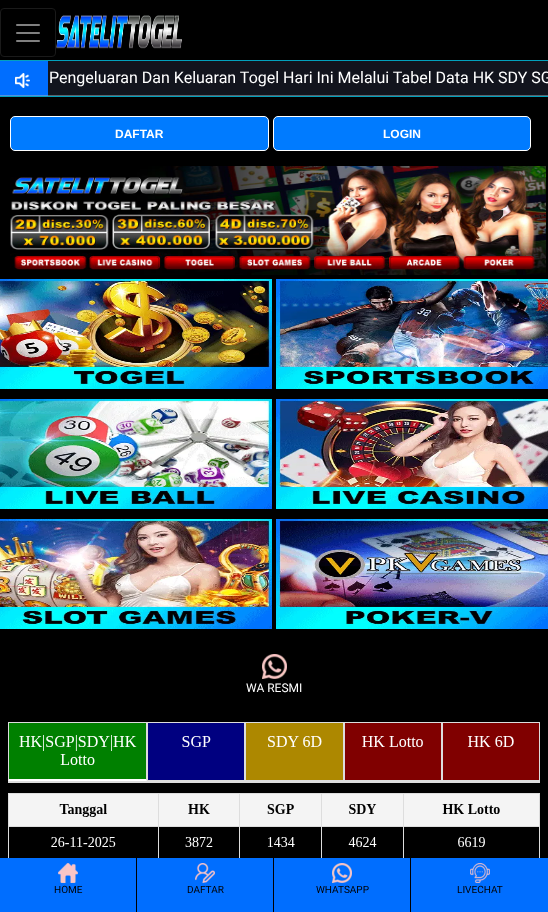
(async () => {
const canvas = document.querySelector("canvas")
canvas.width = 548
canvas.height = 912
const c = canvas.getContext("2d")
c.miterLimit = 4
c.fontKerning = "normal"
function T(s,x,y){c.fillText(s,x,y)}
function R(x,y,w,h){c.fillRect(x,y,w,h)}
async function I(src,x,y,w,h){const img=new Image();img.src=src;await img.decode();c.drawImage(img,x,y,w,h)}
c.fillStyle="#000"
R(0,0,548,912)
c.beginPath()
c.roundRect(.5,8.5,55,48,3.5)
c.strokeStyle="#1a1a1a"
c.stroke()
await I("1.png",16,24,24,18)
await I("2.png",56,15,126,34)
c.fillStyle="#03a1bc"
R(0,60,548,1)
R(0,96,548,1)
c.fillStyle="#12141d"
R(48,61,500,34)
c.fillStyle="#5a636d"
R(48,95,500,1)
c.fillStyle="#006eff"
R(0,61,48,34)
c.fillStyle="#5190de"
R(0,95,48,1)
await I("3.png",15,73,15,15)
c.font="16px Roboto"
c.fillStyle="#fff"
T("Pengeluaran Dan Keluaran Togel Hari Ini Melalui Tabel Data HK SDY SG",49,83)
c.fillStyle="#007bff"
c.beginPath()
c.roundRect(10.5,116.5,258,34,4.5)
c.fill()
c.strokeStyle="#fff"
c.stroke()
c.font="bold 12px Liberation Sans"
c.fillStyle="#fff"
T("DAFTAR",115,138)
c.fillStyle="#007bff"
c.beginPath()
c.roundRect(273.5,116.5,257,34,4.5)
c.fill()
c.stroke()
c.fillStyle="#fff"
T("LOGIN",383,138)
await I("4.png",10,166,536,109)
await I("5.png",0,279,272,110)
await I("6.png",276,279,272,110)
await I("7.png",0,399,272,110)
await I("8.png",276,399,272,110)
await I("9.png",0,519,272,110)
await I("10.png",276,519,272,110)
await I("11.png",262,654,25,25)
c.font="12px Roboto"
T("WA RESMI",246,692)
await I("12.png",8,722,532,136)
c.fillStyle="#006eff"
R(0,858,548,54)
c.fillStyle="#000"
R(136,858,1,54)
await I("13.png",58,863,20,20)
c.font="10px Roboto"
T("HOME",54,893)
R(273,858,1,54)
await I("14.png",195,863,20,20)
T("DAFTAR",187,893)
R(410,858,1,54)
await I("15.png",332,863,20,20)
T("WHATSAPP",316,893)
await I("16.png",470,863,20,20)
T("LIVECHAT",457,893)
})()
